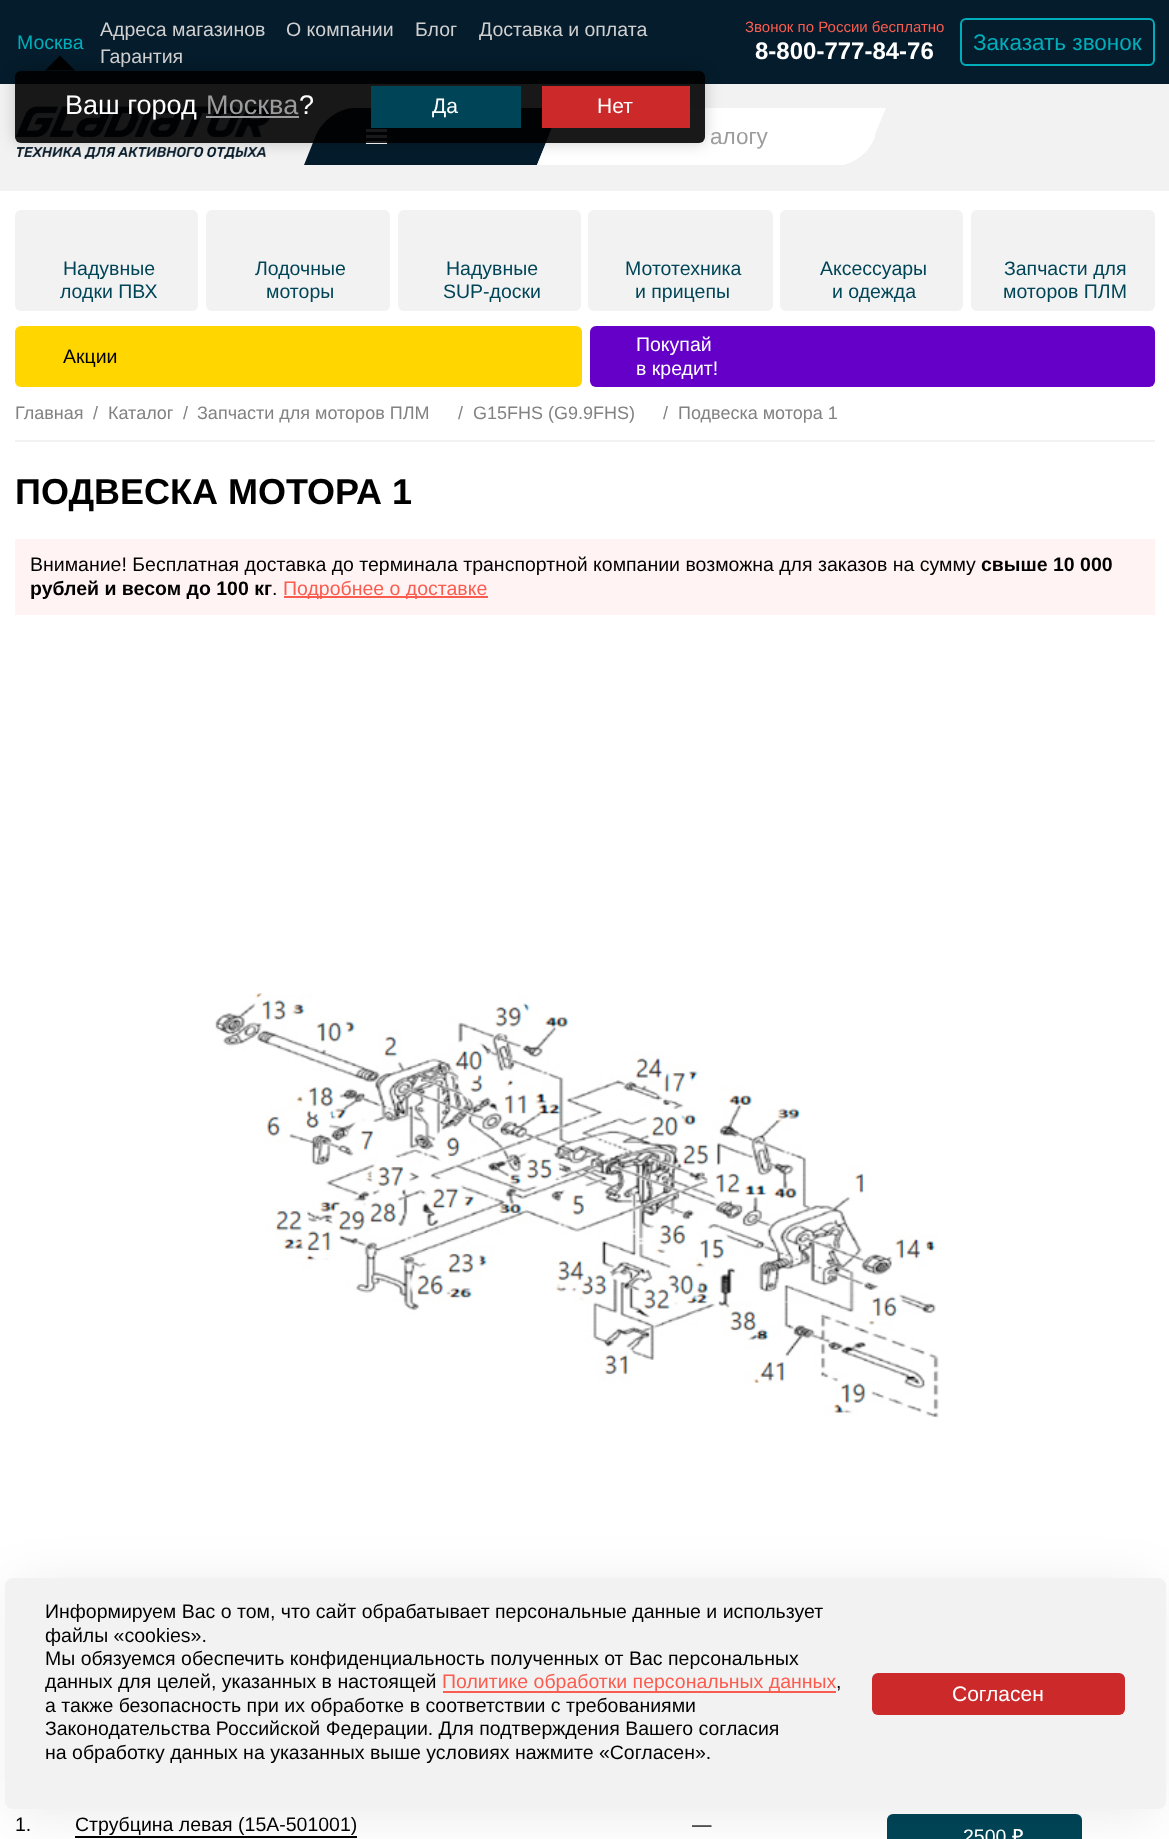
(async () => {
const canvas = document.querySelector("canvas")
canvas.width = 1169
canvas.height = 1839
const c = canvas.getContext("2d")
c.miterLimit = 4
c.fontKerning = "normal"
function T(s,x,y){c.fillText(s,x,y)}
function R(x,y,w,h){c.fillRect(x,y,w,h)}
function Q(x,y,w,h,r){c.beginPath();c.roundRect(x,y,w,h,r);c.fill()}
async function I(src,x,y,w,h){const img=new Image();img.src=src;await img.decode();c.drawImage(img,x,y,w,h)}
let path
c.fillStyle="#fff"
R(0,0,1169,1839)
c.fillStyle="#051c2c"
R(0,0,1169,84)
c.font="19.5px Liberation Sans"
c.fillStyle="#00adbb"
T("Москва",17,49)
c.fillStyle="#d0d0d0"
T("Адреса магазинов",100,36)
T("О компании",286,36)
T("Блог",415,36)
T("Доставка и оплата",479,36)
T("Гарантия",100,63)
c.font="15px Liberation Sans"
c.fillStyle="#fa5c4f"
T("Звонок по России бесплатно",745,32)
c.font="bold 24px Liberation Sans"
c.fillStyle="#fff"
T("8-800-777-84-76",755,59)
c.beginPath()
c.roundRect(961,19,193,46,5)
c.strokeStyle="#00adbb"
c.lineWidth=2
c.stroke()
c.font="22.5px Liberation Sans"
c.fillStyle="#00adbb"
T("Заказать звонок",973,50)
c.fillStyle="#f2f2f2"
R(0,84,1169,107)
await I("1.png",15,106,255,53)
c.fillStyle="#051c2c"
path = new Path2D("M354 108h206l-23 57h-233l12-30c6-14 23-27 38-27z")
c.fill(path)
c.fillStyle="#fff"
R(366,129,21,3)
R(366,135,21,3)
R(366,141,21,3)
path = new Path2D("M842 165c11-2 23-10 29-21l15-36h-326l-23 57z")
c.fill(path)
path = new Path2D("M842 165c13-2 27-13 32-26l1-2v-29h-315l-11 27v30z")
c.fill(path)
c.save()
path = new Path2D("M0 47h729v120h-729zm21 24h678c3.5 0 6 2.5 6 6v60c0 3.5-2.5 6-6 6h-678c-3.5 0-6-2.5-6-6v-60c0-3.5 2.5-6 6-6z")
c.clip(path,"evenodd")
c.fillStyle="#00000033"
c.filter="blur(7.5px)"
c.beginPath()
c.roundRect(15,71,690,72,6)
c.fill()
c.filter="none"
c.restore()
c.fillStyle="#000000e6"
Q(15,71,690,72,6)
c.fillStyle="#000"
path = new Path2D("M75 70.5h-30l15-15z")
c.fill(path)
c.font="27px Liberation Sans"
c.fillStyle="#fff"
T("Ваш город",65,114)
c.fillStyle="#9c9c9c"
T("Москва",206,114)
R(206,116,93,2)
c.fillStyle="#fff"
T("?",299,114)
c.fillStyle="#004557"
R(371,86,150,42)
c.font="21px Liberation Sans"
c.fillStyle="#fff"
T("Да",432,113)
c.fillStyle="#cc292b"
R(542,86,148,42)
c.fillStyle="#fff"
T("Нет",597,113)
c.font="22.5px Liberation Sans"
c.fillStyle="#9c9c9c"
T("алогу",710,144)
c.fillStyle="#f2f2f2"
Q(15,210,183,101,6)
c.font="19.5px Liberation Sans"
c.fillStyle="#004557"
T("Надувные",63,275)
T("лодки ПВХ",60,298)
c.fillStyle="#f2f2f2"
Q(206,210,184,101,6)
c.fillStyle="#004557"
T("Лодочные",255,275)
T("моторы",266,298)
c.fillStyle="#f2f2f2"
Q(398,210,183,101,6)
c.fillStyle="#004557"
T("Надувные",446,275)
T("SUP-доски",443,298)
c.fillStyle="#f2f2f2"
Q(588,210,185,101,6)
c.fillStyle="#004557"
T("Мототехника",625,275)
T("и прицепы",635,298)
c.fillStyle="#f2f2f2"
Q(780,210,183,101,6)
c.fillStyle="#004557"
T("Аксессуары",820,275)
T("и одежда",832,298)
c.fillStyle="#f2f2f2"
Q(971,210,184,101,6)
c.fillStyle="#004557"
T("Запчасти для",1004,275)
T("моторов ПЛМ",1003,298)
c.fillStyle="#ffd600"
Q(15,326,567,61,6)
c.fillStyle="#000"
T("Акции",63,363)
c.fillStyle="#6400c8"
Q(590,326,565,61,6)
c.fillStyle="#fff"
T("Покупай",636,351)
T("в кредит!",636,375)
c.fillStyle="#000"
R(75,1836,282,2)
c.fillStyle="#004557"
Q(887,1814,195,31,6)
c.fillStyle="#00000014"
c.filter="blur(25.5px)"
c.beginPath()
c.rect(15,1584,1140,231)
c.fill()
c.filter="none"
c.fillStyle="#f2f2f2"
Q(5,1578,1161,231,8)
c.fillStyle="#000"
T("Информируем Вас о том, что сайт обрабатывает персональные данные и использует",45,1618)
T("файлы «cookies».",45,1642)
T("Мы обязуемся обеспечить конфиденциальность полученных от Вас персональных",45,1665)
T("данных для целей, указанных в настоящей",45,1688)
c.fillStyle="#fa5c4f"
R(443,1691,393,2)
T("Политике обработки персональных данных",442,1688)
c.fillStyle="#000"
T(",",836,1688)
T("а также безопасность при их обработке в соответствии с требованиями",45,1712)
T("Законодательства Российской Федерации. Для подтверждения Вашего согласия",45,1735)
T("на обработку данных на указанных выше условиях нажмите «Согласен».",45,1759)
c.fillStyle="#cc292b"
Q(872,1673,253,42,6)
c.font="21px Liberation Sans"
c.fillStyle="#fff"
T("Согласен",952,1701)
c.fillStyle="#f2f2f2"
R(15,440,1140,2)
c.font="18px Liberation Sans"
c.fillStyle="#828282"
T("Главная",15,419)
T("/",93,419)
T("Каталог",108,419)
T("/",183,419)
T("Запчасти для моторов ПЛМ",197,419)
T("/",458,419)
T("G15FHS (G9.9FHS)",473,419)
T("/",663,419)
T("Подвеска мотора 1",678,419)
c.font="bold 36px Liberation Sans"
c.fillStyle="#000"
T("ПОДВЕСКА МОТОРА 1",15,504)
c.fillStyle="#fff3f3"
R(15,539,1140,76)
c.font="19.5px Liberation Sans"
c.fillStyle="#000"
T("Внимание! Бесплатная доставка до терминала транспортной компании возможна для заказов на сумму",30,571)
c.font="bold 19.5px Liberation Sans"
T("свыше 10 000",981,571)
T("рублей и весом до 100 кг",30,595)
c.font="19.5px Liberation Sans"
T(".",272,595)
c.fillStyle="#fa5c4f"
R(284,596,204,2)
T("Подробнее о доставке",283,595)
await I("2.png",215,993,724,425)
c.fillStyle="#000"
T("1.",15,1831)
T("Струбцина левая (15A-501001)",75,1831)
T("—",692,1831)
c.fillStyle="#fff"
T("2500",963,1843)
c.font="500 19.5px Noto Sans"
T("₽",1012,1843)
})()
